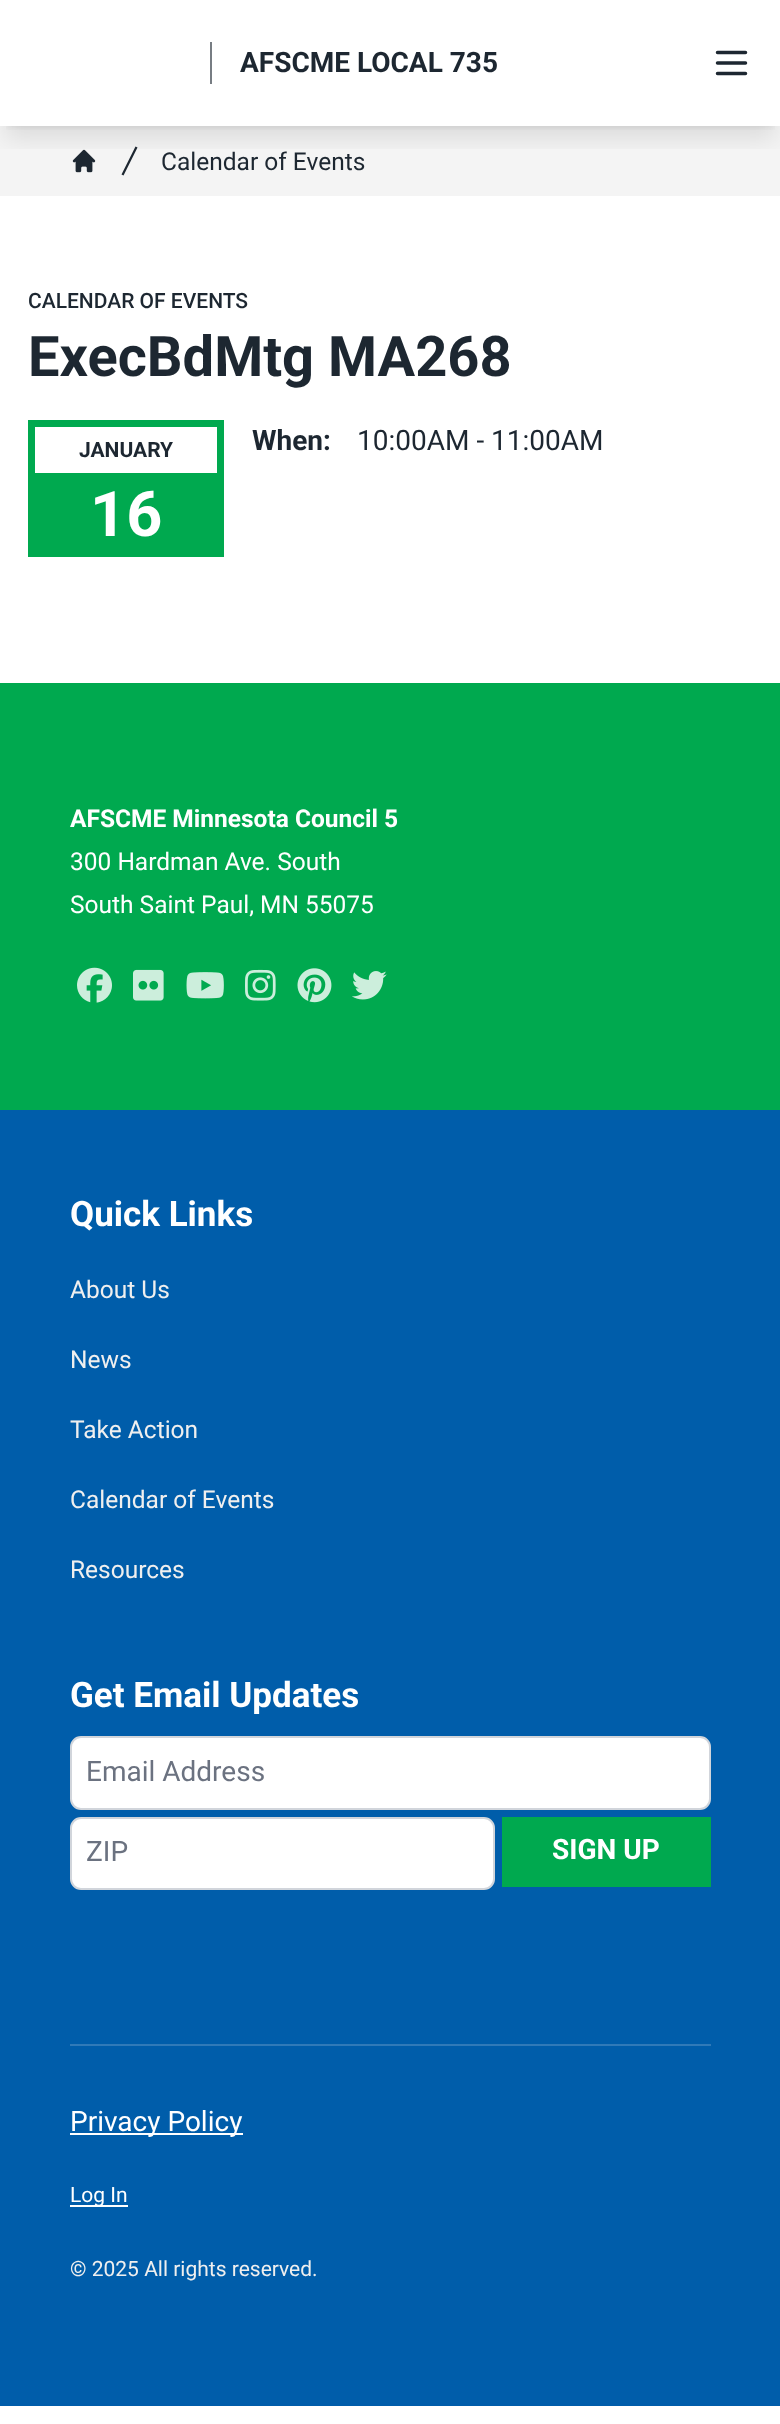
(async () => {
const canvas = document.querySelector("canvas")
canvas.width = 780
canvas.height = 2424
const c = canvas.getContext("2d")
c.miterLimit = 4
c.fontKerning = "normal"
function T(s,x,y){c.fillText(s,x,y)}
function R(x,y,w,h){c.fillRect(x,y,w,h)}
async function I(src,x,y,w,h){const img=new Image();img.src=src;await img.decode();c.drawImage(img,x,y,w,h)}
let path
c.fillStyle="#fff"
R(0,0,780,2424)
c.fillStyle="#f4f4f4"
R(0,126,780,70)
c.save()
c.beginPath()
c.rect(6,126,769,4)
c.clip()
c.fillStyle="#0000001a"
c.filter="blur(5px)"
c.beginPath()
c.rect(7,14,767,112)
c.fill()
c.filter="none"
c.restore()
await I("1.png",72,149,24,24)
c.fillStyle="#1d2731"
path = new Path2D("M121.5 174.5l14-28l2 1l-14 28z")
c.fill(path)
c.save()
c.beginPath()
c.rect(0,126,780,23)
c.clip()
c.fillStyle="#0000001a"
c.filter="blur(13px)"
c.beginPath()
c.rect(5,23,770,115)
c.fill()
c.filter="none"
c.restore()
c.fillStyle="#777d83"
R(210,42,2,42)
c.font="bold 28px Roboto"
c.fillStyle="#1d2731"
T("AFSCME LOCAL 735",240,72)
path = new Path2D("M717.5 52.5h28m-28 10.5h28m-28 10.5h28")
c.strokeStyle="#1d2731"
c.lineWidth=3.5
c.lineCap="round"
c.lineJoin="round"
c.stroke(path)
c.font="24.5px Roboto"
T("Calendar of Events",161,170)
c.font="500 21px Roboto"
T("CALENDAR OF EVENTS",28,308)
c.font="bold 56px Roboto"
T("ExecBdMtg MA268",28,376)
c.fillStyle="#00a94f"
R(28,420,196,137)
c.fillStyle="#fff"
R(35,427,182,46)
c.font="bold 21px Roboto"
c.fillStyle="#1d2731"
T("JANUARY",79,457)
c.font="bold 63px Roboto"
c.fillStyle="#fff"
T("16",90,536)
c.font="bold 28px Roboto"
c.fillStyle="#1d2731"
T("When:",252,450)
c.font="28px Roboto"
T("10:00AM - 11:00AM",357,450)
c.fillStyle="#00a94f"
R(0,683,780,427)
c.font="bold 24.5px Roboto"
c.fillStyle="#fff"
T("AFSCME Minnesota Council 5",70,827)
c.font="24.5px Roboto"
T("300 Hardman Ave. South",70,870)
T("South Saint Paul, MN 55075",70,913)
await I("2.png",77,967,35,36)
await I("3.png",133,969,31,32)
await I("4.png",186,972,38,27)
await I("5.png",245,969,31,32)
await I("6.png",297,968,35,35)
await I("7.png",352,971,35,29)
c.fillStyle="#005daa"
R(0,1110,780,1296)
c.font="bold 35px Roboto"
c.fillStyle="#fff"
T("Quick Links",70,1226)
c.font="24.5px Roboto"
c.fillStyle="#efefef"
T("About Us",70,1298)
T("News",70,1368)
T("Take Action",70,1438)
T("Calendar of Events",70,1508)
T("Resources",70,1578)
c.font="bold 35px Roboto"
c.fillStyle="#fff"
T("Get Email Updates",70,1707)
c.beginPath()
c.roundRect(71,1737,639,72,10)
c.fill()
c.strokeStyle="#d1d5db"
c.lineWidth=2
c.lineJoin="miter"
c.stroke()
c.font="28px Roboto"
c.fillStyle="#6b7280"
T("Email Address",86,1781)
c.fillStyle="#fff"
c.beginPath()
c.roundRect(71,1818,423,71,10)
c.fill()
c.stroke()
c.fillStyle="#6b7280"
T("ZIP",86,1861)
c.fillStyle="#00a94f"
R(502,1817,209,70)
c.font="bold 28px Roboto"
c.fillStyle="#fff"
T("SIGN UP",552,1859)
c.fillStyle="#307ab8"
R(70,2044,641,2)
c.fillStyle="#fff"
R(70,2133,173,2)
c.font="28px Roboto"
T("Privacy Policy",70,2131)
R(70,2205,58,2)
c.font="21px Roboto"
T("Log In",70,2202)
c.fillStyle="#efefef"
T("© 2025 All rights reserved.",70,2276)
})()
